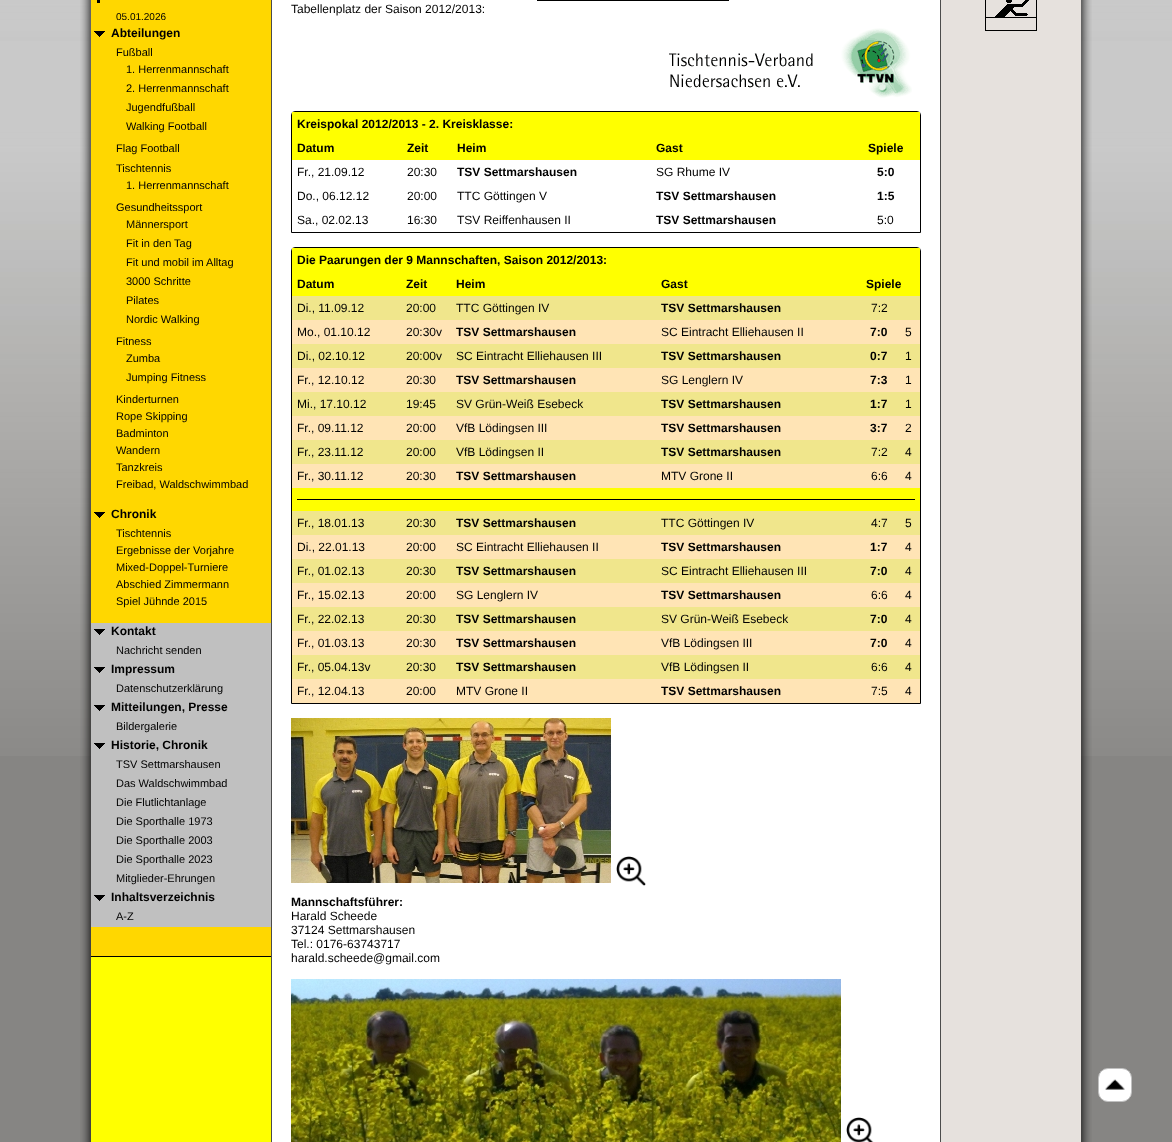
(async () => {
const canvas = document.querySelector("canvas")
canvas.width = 1172
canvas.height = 1142
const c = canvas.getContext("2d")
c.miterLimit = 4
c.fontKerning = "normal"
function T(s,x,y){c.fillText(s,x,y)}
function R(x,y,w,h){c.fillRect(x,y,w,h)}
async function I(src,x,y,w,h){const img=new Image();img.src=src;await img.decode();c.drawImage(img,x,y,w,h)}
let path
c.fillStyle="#868583"
R(0,0,1172,1142)
await I("1.png",0,0,1172,756)
await I("2.png",80,0,11,1142)
c.fillStyle="#ff0"
R(91,957,180,185)
c.fillStyle="#ffd700"
R(91,0,180,623)
c.fillStyle="#000"
R(97,0,3,3)
c.font="10px Liberation Sans"
T("05.01.2026",116,20)
await I("3.png",94,31,11,6)
c.font="bold 12px Liberation Sans"
T("Abteilungen",111,37)
c.font="11px Liberation Sans"
T("Fußball",116,56)
T("1. Herrenmannschaft",126,73)
T("2. Herrenmannschaft",126,92)
T("Jugendfußball",126,111)
T("Walking Football",126,130)
T("Flag Football",116,152)
T("Tischtennis",116,172)
T("1. Herrenmannschaft",126,189)
T("Gesundheitssport",116,211)
T("Männersport",126,228)
T("Fit in den Tag",126,247)
T("Fit und mobil im Alltag",126,266)
T("3000 Schritte",126,285)
T("Pilates",126,304)
T("Nordic Walking",126,323)
T("Fitness",116,345)
T("Zumba",126,362)
T("Jumping Fitness",126,381)
T("Kinderturnen",116,403)
T("Rope Skipping",116,420)
T("Badminton",116,437)
T("Wandern",116,454)
T("Tanzkreis",116,471)
T("Freibad, Waldschwimmbad",116,488)
await I("3.png",94,512,11,6)
c.font="bold 12px Liberation Sans"
T("Chronik",111,518)
c.font="11px Liberation Sans"
T("Tischtennis",116,537)
T("Ergebnisse der Vorjahre",116,554)
T("Mixed-Doppel-Turniere",116,571)
T("Abschied Zimmermann",116,588)
T("Spiel Jühnde 2015",116,605)
c.fillStyle="#ffd700"
R(91,927,180,29)
c.fillStyle="#c0c0c0"
R(91,623,180,304)
await I("4.png",94,629,11,6)
c.font="bold 12px Liberation Sans"
c.fillStyle="#000"
T("Kontakt",111,635)
c.font="11px Liberation Sans"
T("Nachricht senden",116,654)
await I("4.png",94,667,11,6)
c.font="bold 12px Liberation Sans"
T("Impressum",111,673)
c.font="11px Liberation Sans"
T("Datenschutzerklärung",116,692)
await I("4.png",94,705,11,6)
c.font="bold 12px Liberation Sans"
T("Mitteilungen, Presse",111,711)
c.font="11px Liberation Sans"
T("Bildergalerie",116,730)
await I("4.png",94,743,11,6)
c.font="bold 12px Liberation Sans"
T("Historie, Chronik",111,749)
c.font="11px Liberation Sans"
T("TSV Settmarshausen",116,768)
T("Das Waldschwimmbad",116,787)
T("Die Flutlichtanlage",116,806)
T("Die Sporthalle 1973",116,825)
T("Die Sporthalle 2003",116,844)
T("Die Sporthalle 2023",116,863)
T("Mitglieder-Ehrungen",116,882)
await I("4.png",94,895,11,6)
c.font="bold 12px Liberation Sans"
T("Inhaltsverzeichnis",111,901)
c.font="11px Liberation Sans"
T("A-Z",116,920)
R(91,956,180,1)
c.fillStyle="#fff"
R(272,0,668,1142)
c.fillStyle="#4c4c4c"
path = new Path2D("M941-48v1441h-1v-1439z")
c.fill(path)
path = new Path2D("M271 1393v-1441l1 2v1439z")
c.fill(path)
c.fillStyle="#000"
R(537,0,192,1)
c.font="12px Liberation Sans"
T("Tabellenplatz der Saison 2012/2013:",291,13)
await I("5.png",669,28,243,70)
c.beginPath()
c.roundRect(291.5,111.5,629,121,[3.5,3.5,0,0])
c.strokeStyle="#000"
c.stroke()
c.fillStyle="#ff0"
R(292,112,628,48)
c.font="bold 12px Liberation Sans"
c.fillStyle="#000"
T("Kreispokal 2012/2013 - 2. Kreisklasse:",297,128)
T("Datum",297,152)
T("Zeit",407,152)
T("Heim",457,152)
T("Gast",656,152)
T("Spiele",868,152)
c.font="12px Liberation Sans"
T("Fr., 21.09.12",297,176)
T("20:30",407,176)
c.font="bold 12px Liberation Sans"
T("TSV Settmarshausen",457,176)
c.font="12px Liberation Sans"
T("SG Rhume IV",656,176)
c.font="bold 12px Liberation Sans"
T("5:0",877,176)
c.font="12px Liberation Sans"
T("Do., 06.12.12",297,200)
T("20:00",407,200)
T("TTC Göttingen V",457,200)
c.font="bold 12px Liberation Sans"
T("TSV Settmarshausen",656,200)
T("1:5",877,200)
c.font="12px Liberation Sans"
T("Sa., 02.02.13",297,224)
T("16:30",407,224)
T("TSV Reiffenhausen II",457,224)
c.font="bold 12px Liberation Sans"
T("TSV Settmarshausen",656,224)
c.font="12px Liberation Sans"
T("5:0",877,224)
c.beginPath()
c.roundRect(291.5,247.5,629,456,[3.5,3.5,0,0])
c.stroke()
c.fillStyle="#ff0"
R(292,248,628,48)
c.font="bold 12px Liberation Sans"
c.fillStyle="#000"
T("Die Paarungen der 9 Mannschaften, Saison 2012/2013:",297,264)
T("Datum",297,288)
T("Zeit",406,288)
T("Heim",456,288)
T("Gast",661,288)
T("Spiele",866,288)
c.fillStyle="#f0e68c"
R(292,296,628,24)
c.font="12px Liberation Sans"
c.fillStyle="#000"
T("Di., 11.09.12",297,312)
T("20:00",406,312)
T("TTC Göttingen IV",456,312)
c.font="bold 12px Liberation Sans"
T("TSV Settmarshausen",661,312)
c.font="12px Liberation Sans"
T("7:2",871,312)
c.fillStyle="#ffe4b5"
R(292,320,628,24)
c.fillStyle="#000"
T("Mo., 01.10.12",297,336)
T("20:30v",406,336)
c.font="bold 12px Liberation Sans"
T("TSV Settmarshausen",456,336)
c.font="12px Liberation Sans"
T("SC Eintracht Elliehausen II",661,336)
c.font="bold 12px Liberation Sans"
T("7:0",870,336)
c.font="12px Liberation Sans"
T("5",905,336)
c.fillStyle="#f0e68c"
R(292,344,628,24)
c.fillStyle="#000"
T("Di., 02.10.12",297,360)
T("20:00v",406,360)
T("SC Eintracht Elliehausen III",456,360)
c.font="bold 12px Liberation Sans"
T("TSV Settmarshausen",661,360)
T("0:7",870,360)
c.font="12px Liberation Sans"
T("1",905,360)
c.fillStyle="#ffe4b5"
R(292,368,628,24)
c.fillStyle="#000"
T("Fr., 12.10.12",297,384)
T("20:30",406,384)
c.font="bold 12px Liberation Sans"
T("TSV Settmarshausen",456,384)
c.font="12px Liberation Sans"
T("SG Lenglern IV",661,384)
c.font="bold 12px Liberation Sans"
T("7:3",870,384)
c.font="12px Liberation Sans"
T("1",905,384)
c.fillStyle="#f0e68c"
R(292,392,628,24)
c.fillStyle="#000"
T("Mi., 17.10.12",297,408)
T("19:45",406,408)
T("SV Grün-Weiß Esebeck",456,408)
c.font="bold 12px Liberation Sans"
T("TSV Settmarshausen",661,408)
T("1:7",870,408)
c.font="12px Liberation Sans"
T("1",905,408)
c.fillStyle="#ffe4b5"
R(292,416,628,24)
c.fillStyle="#000"
T("Fr., 09.11.12",297,432)
T("20:00",406,432)
T("VfB Lödingsen III",456,432)
c.font="bold 12px Liberation Sans"
T("TSV Settmarshausen",661,432)
T("3:7",870,432)
c.font="12px Liberation Sans"
T("2",905,432)
c.fillStyle="#f0e68c"
R(292,440,628,24)
c.fillStyle="#000"
T("Fr., 23.11.12",297,456)
T("20:00",406,456)
T("VfB Lödingsen II",456,456)
c.font="bold 12px Liberation Sans"
T("TSV Settmarshausen",661,456)
c.font="12px Liberation Sans"
T("7:2",871,456)
T("4",905,456)
c.fillStyle="#ffe4b5"
R(292,464,628,24)
c.fillStyle="#000"
T("Fr., 30.11.12",297,480)
T("20:30",406,480)
c.font="bold 12px Liberation Sans"
T("TSV Settmarshausen",456,480)
c.font="12px Liberation Sans"
T("MTV Grone II",661,480)
T("6:6",871,480)
T("4",905,480)
c.fillStyle="#ff0"
R(292,488,628,23)
c.fillStyle="#000"
R(297,499,618,1)
c.fillStyle="#f0e68c"
R(292,511,628,24)
c.fillStyle="#000"
T("Fr., 18.01.13",297,527)
T("20:30",406,527)
c.font="bold 12px Liberation Sans"
T("TSV Settmarshausen",456,527)
c.font="12px Liberation Sans"
T("TTC Göttingen IV",661,527)
T("4:7",871,527)
T("5",905,527)
c.fillStyle="#ffe4b5"
R(292,535,628,24)
c.fillStyle="#000"
T("Di., 22.01.13",297,551)
T("20:00",406,551)
T("SC Eintracht Elliehausen II",456,551)
c.font="bold 12px Liberation Sans"
T("TSV Settmarshausen",661,551)
T("1:7",870,551)
c.font="12px Liberation Sans"
T("4",905,551)
c.fillStyle="#f0e68c"
R(292,559,628,24)
c.fillStyle="#000"
T("Fr., 01.02.13",297,575)
T("20:30",406,575)
c.font="bold 12px Liberation Sans"
T("TSV Settmarshausen",456,575)
c.font="12px Liberation Sans"
T("SC Eintracht Elliehausen III",661,575)
c.font="bold 12px Liberation Sans"
T("7:0",870,575)
c.font="12px Liberation Sans"
T("4",905,575)
c.fillStyle="#ffe4b5"
R(292,583,628,24)
c.fillStyle="#000"
T("Fr., 15.02.13",297,599)
T("20:00",406,599)
T("SG Lenglern IV",456,599)
c.font="bold 12px Liberation Sans"
T("TSV Settmarshausen",661,599)
c.font="12px Liberation Sans"
T("6:6",871,599)
T("4",905,599)
c.fillStyle="#f0e68c"
R(292,607,628,24)
c.fillStyle="#000"
T("Fr., 22.02.13",297,623)
T("20:30",406,623)
c.font="bold 12px Liberation Sans"
T("TSV Settmarshausen",456,623)
c.font="12px Liberation Sans"
T("SV Grün-Weiß Esebeck",661,623)
c.font="bold 12px Liberation Sans"
T("7:0",870,623)
c.font="12px Liberation Sans"
T("4",905,623)
c.fillStyle="#ffe4b5"
R(292,631,628,24)
c.fillStyle="#000"
T("Fr., 01.03.13",297,647)
T("20:30",406,647)
c.font="bold 12px Liberation Sans"
T("TSV Settmarshausen",456,647)
c.font="12px Liberation Sans"
T("VfB Lödingsen III",661,647)
c.font="bold 12px Liberation Sans"
T("7:0",870,647)
c.font="12px Liberation Sans"
T("4",905,647)
c.fillStyle="#f0e68c"
R(292,655,628,24)
c.fillStyle="#000"
T("Fr., 05.04.13v",297,671)
T("20:30",406,671)
c.font="bold 12px Liberation Sans"
T("TSV Settmarshausen",456,671)
c.font="12px Liberation Sans"
T("VfB Lödingsen II",661,671)
T("6:6",871,671)
T("4",905,671)
c.fillStyle="#ffe4b5"
R(292,679,628,24)
c.fillStyle="#000"
T("Fr., 12.04.13",297,695)
T("20:00",406,695)
T("MTV Grone II",456,695)
c.font="bold 12px Liberation Sans"
T("TSV Settmarshausen",661,695)
c.font="12px Liberation Sans"
T("7:5",871,695)
T("4",905,695)
await I("6.png",291,718,320,165)
await I("7.png",616,856,30,30)
c.font="bold 12px Liberation Sans"
T("Mannschaftsführer:",291,906)
c.font="12px Liberation Sans"
T("Harald Scheede",291,920)
T("37124 Settmarshausen",291,934)
T("Tel.: 0176-63743717",291,948)
T("harald.scheede@gmail.com",291,962)
await I("8.png",291,979,550,163)
await I("9.png",846,1117,28,25)
c.fillStyle="#e6e1dd"
R(941,0,140,1142)
await I("10.png",985,0,52,31)
await I("11.png",1081,0,11,1142)
c.fillStyle="#fff"
c.beginPath()
c.roundRect(1098.5,1068.5,33,33,9.5)
c.fill()
c.strokeStyle="#c0c0c0"
c.stroke()
await I("12.png",1105,1079,20,11)
})()
